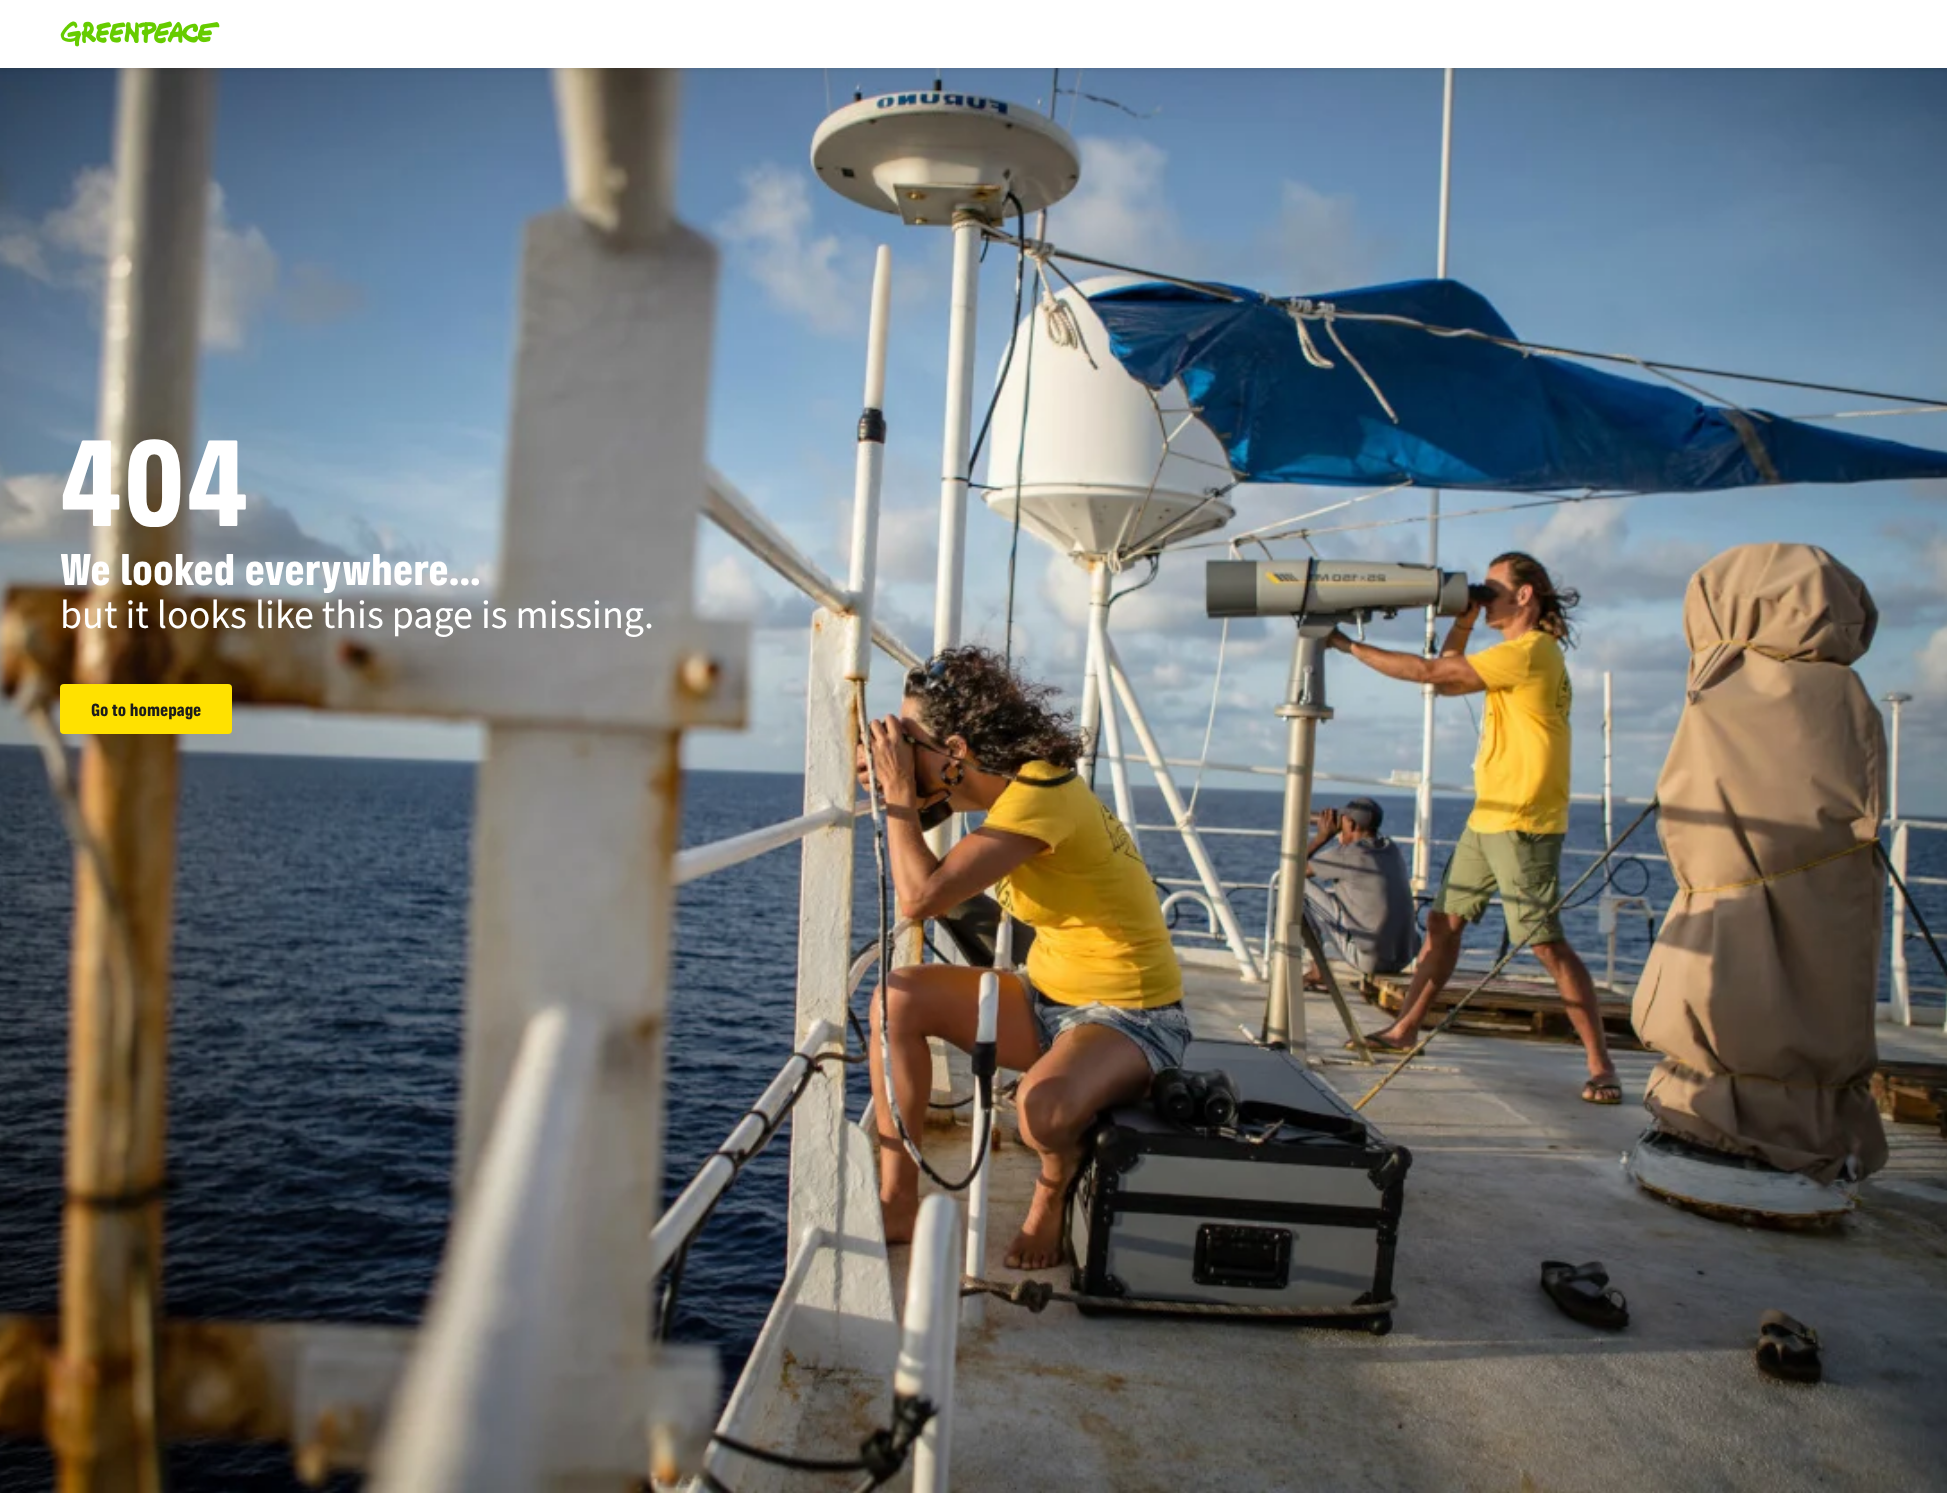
(async () => {
const canvas = document.querySelector("canvas")
canvas.width = 1947
canvas.height = 1493
const c = canvas.getContext("2d")
c.miterLimit = 4
c.fontKerning = "normal"
function T(s,x,y){c.fillText(s,x,y)}
function R(x,y,w,h){c.fillRect(x,y,w,h)}
function Q(x,y,w,h,r){c.beginPath();c.roundRect(x,y,w,h,r);c.fill()}
async function I(src,x,y,w,h){const img=new Image();img.src=src;await img.decode();c.drawImage(img,x,y,w,h)}
c.fillStyle="#fff"
R(0,0,1947,1493)
await I("2.png",0,68,1947,1425)
c.fillStyle="#00000014"
c.filter="blur(2px)"
c.beginPath()
c.rect(0,2,1947,68)
c.fill()
c.filter="none"
c.fillStyle="#fff"
R(0,0,1947,68)
await I("1.png",60,21,160,26)
c.letterSpacing="2px"
c.font="bold 110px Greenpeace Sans"
T("404",60,526)
c.letterSpacing="0px"
c.font="bold 40px Greenpeace Sans"
T("We looked everywhere...",60,585)
c.font="40px 'Source Sans 3'"
T("but it looks like this page is missing.",60,628)
c.fillStyle="#ffe100"
Q(60,684,172,50,4)
c.font="bold 16px Greenpeace Sans"
c.fillStyle="#1c1c1c"
T("Go to homepage",91,716)
})()
